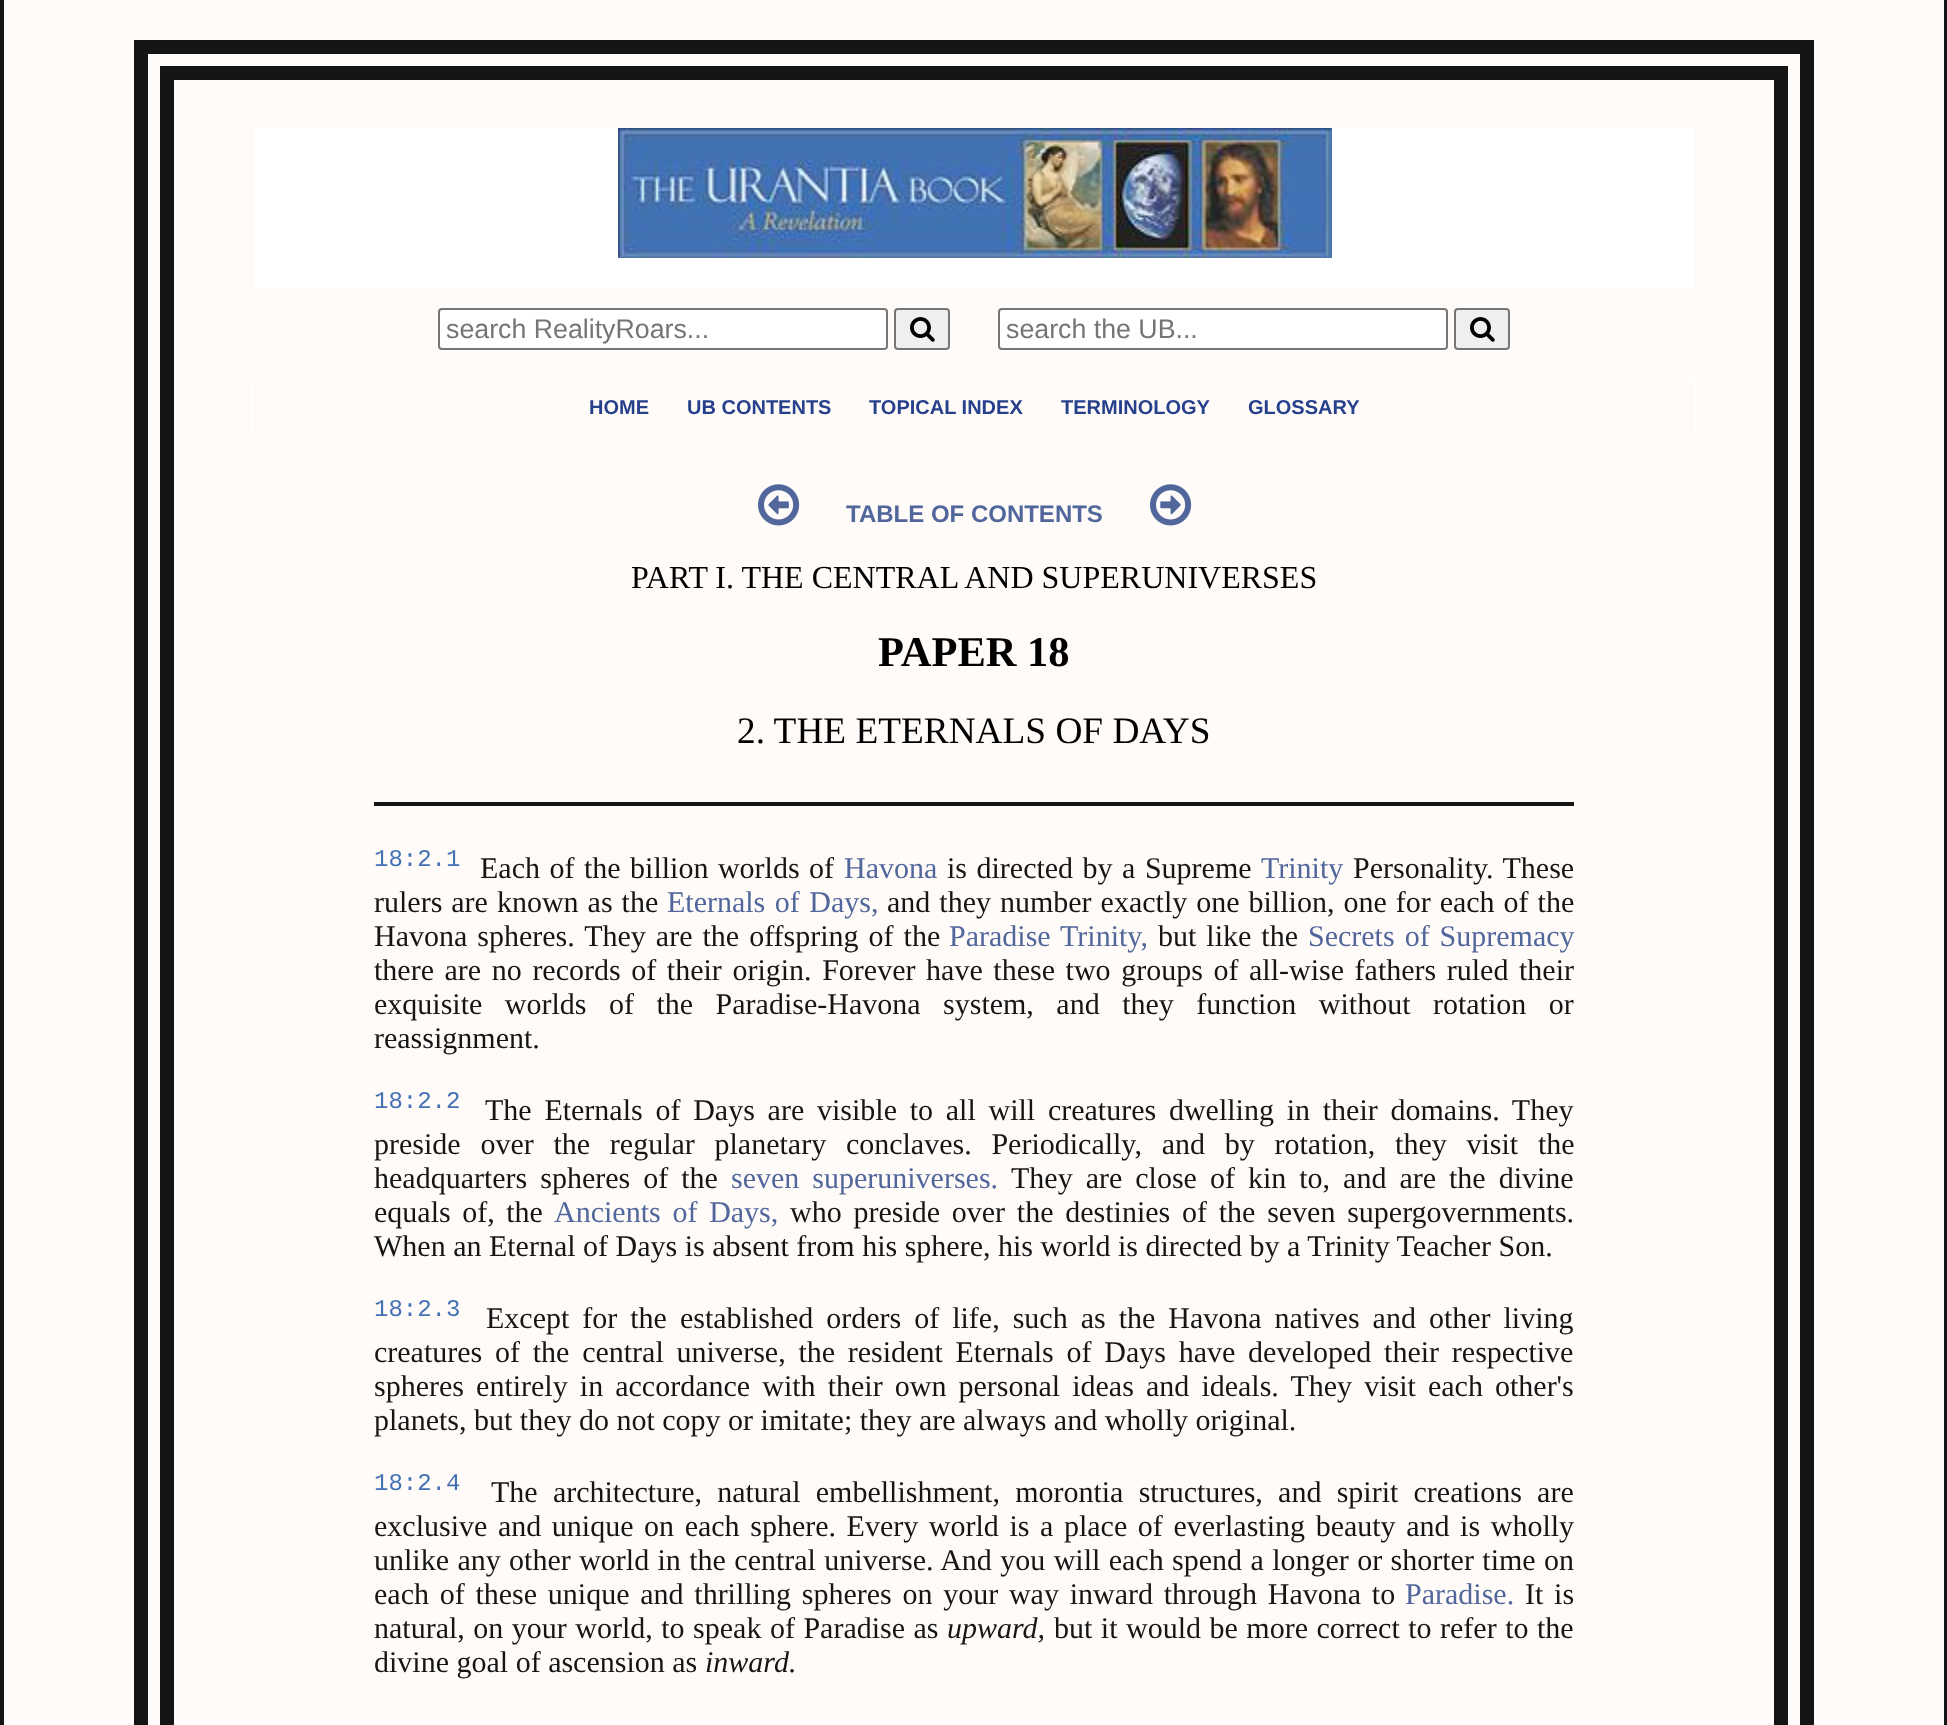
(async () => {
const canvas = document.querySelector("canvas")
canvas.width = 1947
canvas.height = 1725
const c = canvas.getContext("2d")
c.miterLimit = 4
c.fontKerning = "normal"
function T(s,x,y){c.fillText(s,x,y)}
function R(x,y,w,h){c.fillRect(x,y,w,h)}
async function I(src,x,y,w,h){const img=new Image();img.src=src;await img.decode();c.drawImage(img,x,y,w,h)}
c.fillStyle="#151515"
R(0,0,1947,1725)
c.fillStyle="#fffbf9"
R(4,0,1940,1725)
c.strokeStyle="#151515"
c.lineWidth=14
c.strokeRect(141,47,1666,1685)
c.strokeRect(167,73,1614,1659)
c.fillStyle="#fff"
R(254,128,1440,160)
await I("1.png",618,128,714,130)
c.beginPath()
c.roundRect(439,309,448,40,3)
c.fill()
c.strokeStyle="#767676"
c.lineWidth=2
c.stroke()
c.font="26.75px Liberation Sans"
c.fillStyle="#757575"
T("search RealityRoars...",446,338)
c.fillStyle="#efefef"
c.beginPath()
c.roundRect(895,309,54,40,3)
c.fill()
c.stroke()
await I("2.png",910,317,25,25)
c.fillStyle="#fff"
c.beginPath()
c.roundRect(999,309,448,40,3)
c.fill()
c.stroke()
c.fillStyle="#757575"
T("search the UB...",1006,338)
c.fillStyle="#efefef"
c.beginPath()
c.roundRect(1455,309,54,40,3)
c.fill()
c.stroke()
await I("2.png",1470,317,25,25)
c.strokeStyle="#fff"
c.strokeRect(253,379,1442,56)
c.font="bold 20px Liberation Sans"
c.fillStyle="#27408b"
T("HOME",589,414)
T("UB CONTENTS",687,414)
T("TOPICAL INDEX",869,414)
T("TERMINOLOGY",1061,414)
T("GLOSSARY",1248,414)
await I("3.png",758,484,42,42)
c.font="bold 24px Liberation Sans"
c.fillStyle="#51669b"
T("TABLE OF CONTENTS",846,522)
await I("4.png",1150,484,42,42)
c.font="32px Liberation Serif"
c.fillStyle="#000"
T("PART I. THE CENTRAL AND SUPERUNIVERSES",631,588)
c.font="bold 42.5px Liberation Serif"
T("PAPER 18",878,666)
c.font="37.3px Liberation Serif"
T("2. THE ETERNALS OF DAYS",737,743)
c.fillStyle="#141414"
R(374,802,1200,4)
c.font="24px Liberation Mono"
c.fillStyle="#4371b4"
T("18:2.1",374,866)
c.wordSpacing="2px"
c.font="30px Liberation Serif"
c.fillStyle="#151515"
T("Each of the billion worlds of",480,878)
c.wordSpacing="0px"
c.fillStyle="#51669b"
T("Havona",844,878)
c.wordSpacing="2px"
c.fillStyle="#151515"
T("is directed by a Supreme",947,878)
c.wordSpacing="0px"
c.fillStyle="#51669b"
T("Trinity",1261,878)
c.wordSpacing="2px"
c.fillStyle="#151515"
T("Personality. These",1353,878)
c.wordSpacing="1.5px"
T("rulers are known as the",374,912)
c.wordSpacing="2px"
c.fillStyle="#51669b"
T("Eternals of Days,",667,912)
c.wordSpacing="1.5px"
c.fillStyle="#151515"
T("and they number exactly one billion, one for each of the",887,912)
c.wordSpacing="2.5px"
T("Havona spheres. They are the offspring of the",374,946)
c.fillStyle="#51669b"
T("Paradise Trinity,",949,946)
c.fillStyle="#151515"
T("but like the",1158,946)
c.fillStyle="#51669b"
T("Secrets of Supremacy",1308,946)
c.wordSpacing="3.1px"
c.fillStyle="#151515"
T("there are no records of their origin. Forever have these two groups of all-wise fathers ruled their",374,980)
c.wordSpacing="15px"
T("exquisite worlds of the Paradise-Havona system, and they function without rotation or",374,1014)
c.wordSpacing="0px"
T("reassignment.",374,1048)
c.font="24px Liberation Mono"
c.fillStyle="#4371b4"
T("18:2.2",374,1108)
c.wordSpacing="5.25px"
c.font="30px Liberation Serif"
c.fillStyle="#151515"
T("The Eternals of Days are visible to all will creatures dwelling in their domains. They",485,1120)
c.wordSpacing="12.25px"
T("preside over the regular planetary conclaves. Periodically, and by rotation, they visit the",374,1154)
c.wordSpacing="5.5px"
T("headquarters spheres of the",374,1188)
c.fillStyle="#51669b"
T("seven superuniverses.",731,1188)
c.fillStyle="#151515"
T("They are close of kin to, and are the divine",1011,1188)
c.wordSpacing="4px"
T("equals of, the",374,1222)
c.wordSpacing="4.25px"
c.fillStyle="#51669b"
T("Ancients of Days,",554,1222)
c.fillStyle="#151515"
T("who preside over the destinies of the seven supergovernments.",790,1222)
c.wordSpacing="0px"
T("When an Eternal of Days is absent from his sphere, his world is directed by a Trinity Teacher Son.",374,1256)
c.font="24px Liberation Mono"
c.fillStyle="#4371b4"
T("18:2.3",374,1316)
c.wordSpacing="5.5px"
c.font="30px Liberation Serif"
c.fillStyle="#151515"
T("Except for the established orders of life, such as the Havona natives and other living",486,1328)
c.wordSpacing="5.25px"
T("creatures of the central universe, the resident Eternals of Days have developed their respective",374,1362)
c.wordSpacing="4.6px"
T("spheres entirely in accordance with their own personal ideas and ideals. They visit each other's",374,1396)
c.wordSpacing="0px"
T("planets, but they do not copy or imitate; they are always and wholly original.",374,1430)
c.font="24px Liberation Mono"
c.fillStyle="#4371b4"
T("18:2.4",374,1490)
c.wordSpacing="7.75px"
c.font="30px Liberation Serif"
c.fillStyle="#151515"
T("The architecture, natural embellishment, morontia structures, and spirit creations are",491,1502)
c.wordSpacing="3.1px"
T("exclusive and unique on each sphere. Every world is a place of everlasting beauty and is wholly",374,1536)
c.wordSpacing="0.9px"
T("unlike any other world in the central universe. And you will each spend a longer or shorter time on",374,1570)
c.wordSpacing="3.25px"
T("each of these unique and thrilling spheres on your way inward through Havona to",374,1604)
c.wordSpacing="0px"
c.fillStyle="#51669b"
T("Paradise.",1405,1604)
c.wordSpacing="3.25px"
c.fillStyle="#151515"
T("It is",1525,1604)
c.wordSpacing="1px"
T("natural, on your world, to speak of Paradise as",374,1638)
c.wordSpacing="0px"
c.font="italic 30px Liberation Serif"
T("upward,",947,1638)
c.wordSpacing="1px"
c.font="30px Liberation Serif"
T("but it would be more correct to refer to the",1054,1638)
c.wordSpacing="0px"
T("divine goal of ascension as",374,1672)
c.font="italic 30px Liberation Serif"
T("inward.",705,1672)
})()
